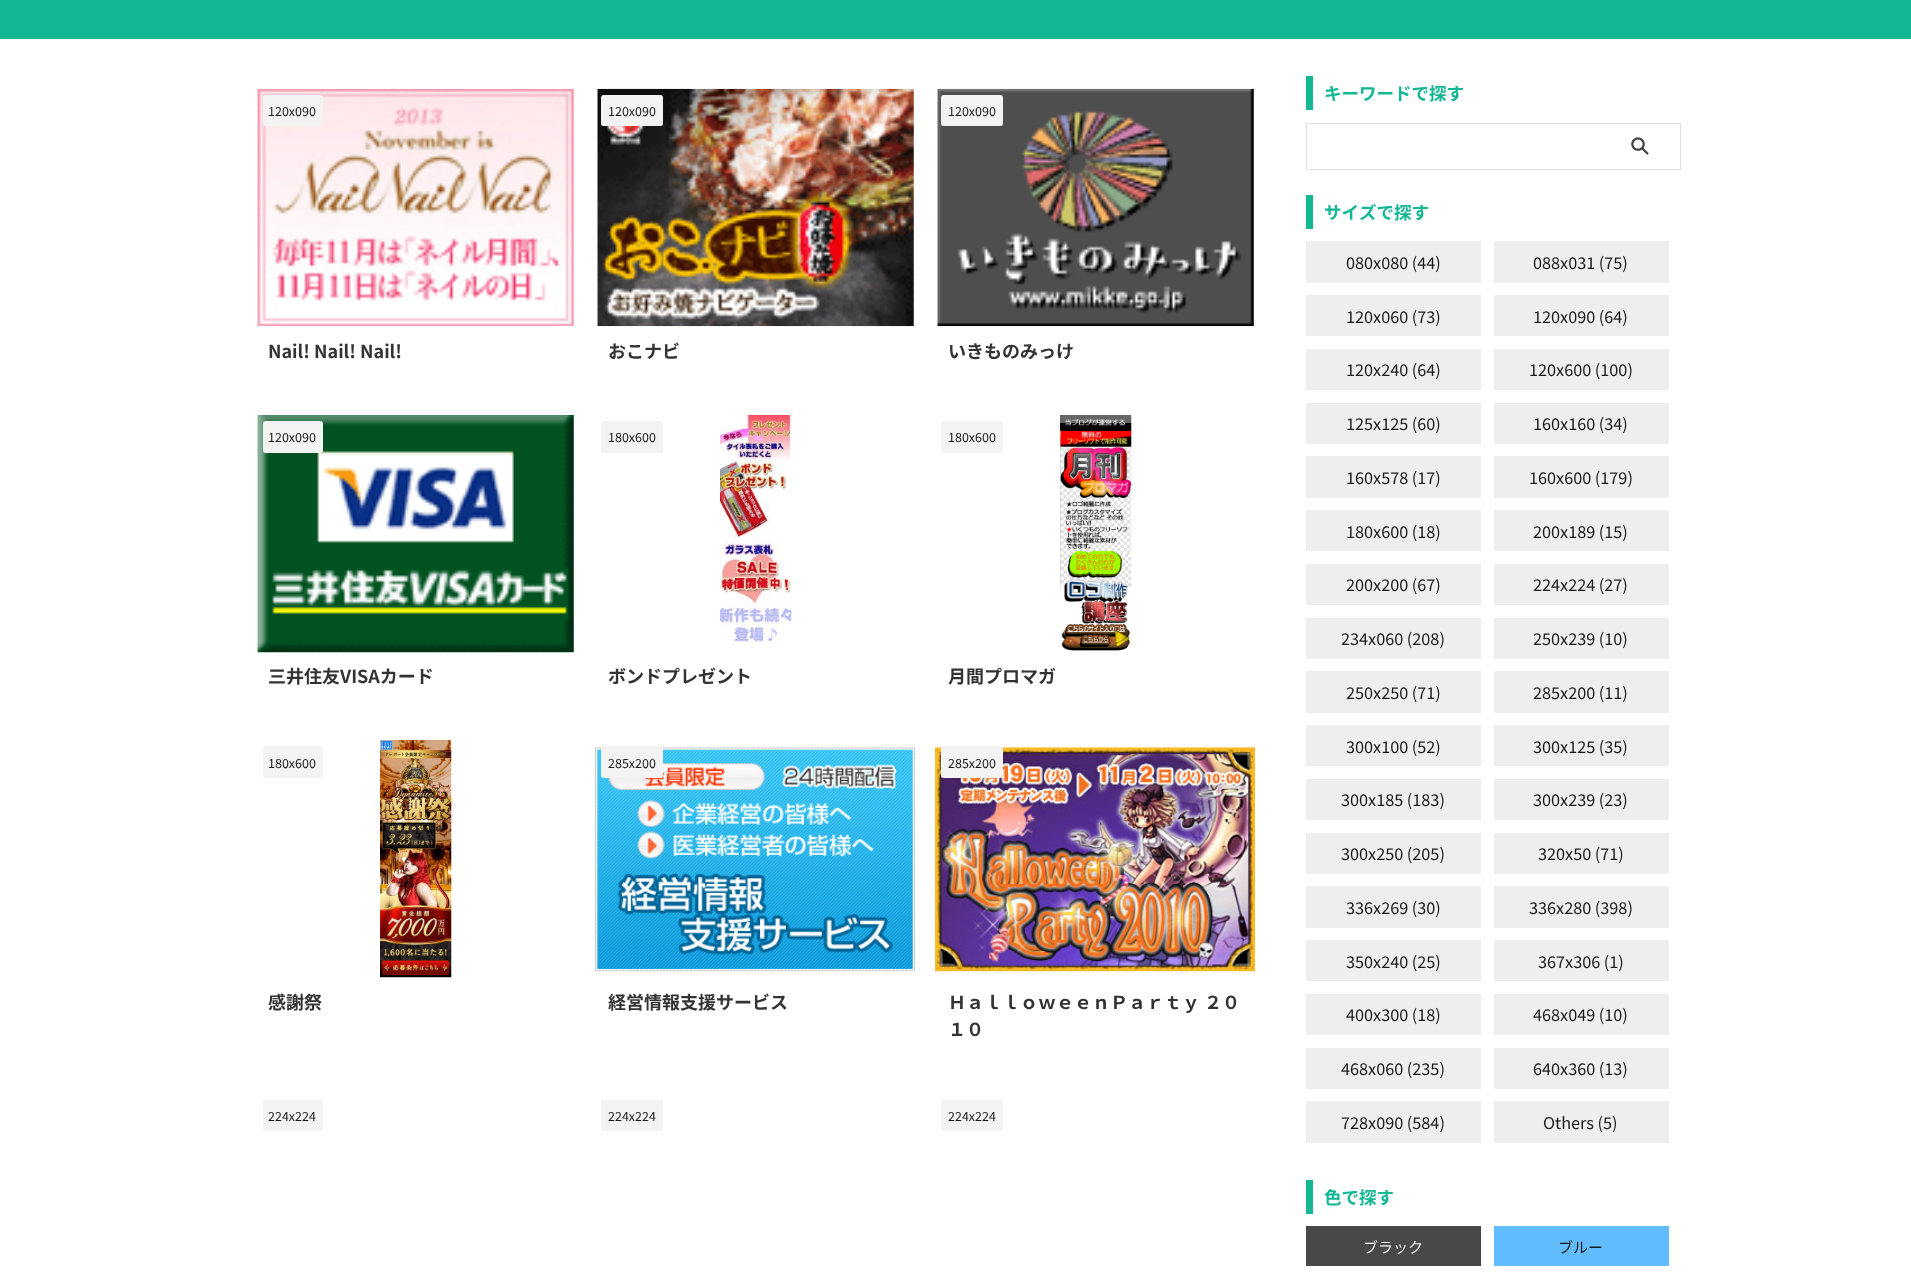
(async () => {
const canvas = document.querySelector("canvas")
canvas.width = 1911
canvas.height = 1272
const c = canvas.getContext("2d")
c.miterLimit = 4
c.fontKerning = "none"
function T(s,x,y){c.fillText(s,x,y)}
function R(x,y,w,h){c.fillRect(x,y,w,h)}
function Q(x,y,w,h,r){c.beginPath();c.roundRect(x,y,w,h,r);c.fill()}
async function I(src,x,y,w,h){const img=new Image();img.src=src;await img.decode();c.drawImage(img,x,y,w,h)}
c.fillStyle="#fff"
R(0,0,1911,1272)
c.fillStyle="#13b794"
R(0,0,1911,39)
await I("1.png",257,88,317,239)
c.fillStyle="#f3f3f3"
Q(263,95,60,31,2.5)
c.font="12.5px Noto Sans JP"
c.fillStyle="#1a1a1a"
T("120x090",268,116)
c.font="bold 18px Noto Sans JP"
c.fillStyle="#333"
T("Nail! Nail! Nail!",268,358)
await I("2.png",597,88,317,239)
c.fillStyle="#f3f3f3"
Q(601,95,62,31,2.5)
c.font="12.5px Noto Sans JP"
c.fillStyle="#1a1a1a"
T("120x090",608,116)
c.font="bold 18px Noto Sans JP"
c.fillStyle="#333"
T("おこナビ",608,358)
await I("3.png",937,88,317,239)
c.fillStyle="#f3f3f3"
Q(941,95,62,31,2.5)
c.font="12.5px Noto Sans JP"
c.fillStyle="#1a1a1a"
T("120x090",948,116)
c.font="bold 18px Noto Sans JP"
c.fillStyle="#333"
T("いきものみっけ",948,358)
await I("4.png",257,415,317,238)
c.fillStyle="#f3f3f3"
Q(263,421,60,32,2.5)
c.font="12.5px Noto Sans JP"
c.fillStyle="#1a1a1a"
T("120x090",268,442)
c.font="bold 18px Noto Sans JP"
c.fillStyle="#333"
T("三井住友VISAカード",268,683)
c.fillStyle="#f3f3f3"
Q(601,421,62,32,2.5)
c.font="12.5px Noto Sans JP"
c.fillStyle="#1a1a1a"
T("180x600",608,442)
await I("5.png",720,415,72,228)
c.font="bold 18px Noto Sans JP"
c.fillStyle="#333"
T("ボンドプレゼント",608,683)
c.fillStyle="#f3f3f3"
Q(941,421,62,32,2.5)
c.font="12.5px Noto Sans JP"
c.fillStyle="#1a1a1a"
T("180x600",948,442)
await I("6.png",1060,415,72,236)
c.font="bold 18px Noto Sans JP"
c.fillStyle="#333"
T("月間プロマガ",948,683)
c.fillStyle="#f3f3f3"
Q(263,746,60,32,2.5)
c.font="12.5px Noto Sans JP"
c.fillStyle="#1a1a1a"
T("180x600",268,768)
await I("7.png",380,740,72,238)
c.font="bold 18px Noto Sans JP"
c.fillStyle="#333"
T("感謝祭",268,1009)
await I("8.png",595,747,320,225)
c.fillStyle="#f3f3f3"
Q(601,746,62,32,2.5)
c.font="12.5px Noto Sans JP"
c.fillStyle="#1a1a1a"
T("285x200",608,768)
c.font="bold 18px Noto Sans JP"
c.fillStyle="#333"
T("経営情報支援サービス",608,1009)
await I("9.png",935,747,320,225)
c.fillStyle="#f3f3f3"
Q(941,746,62,32,2.5)
c.font="12.5px Noto Sans JP"
c.fillStyle="#1a1a1a"
T("285x200",948,768)
c.font="bold 18px Noto Sans JP"
c.fillStyle="#333"
T("ＨａｌｌｏｗｅｅｎＰａｒｔｙ ２０",948,1009)
T("１０",948,1036)
c.fillStyle="#f3f3f3"
Q(263,1100,60,31,2.5)
c.font="12.5px Noto Sans JP"
c.fillStyle="#1a1a1a"
T("224x224",268,1121)
c.fillStyle="#f3f3f3"
Q(601,1100,62,31,2.5)
c.fillStyle="#1a1a1a"
T("224x224",608,1121)
c.fillStyle="#f3f3f3"
Q(941,1100,62,31,2.5)
c.fillStyle="#1a1a1a"
T("224x224",948,1121)
c.fillStyle="#13b794"
R(1306,76,7,34)
c.font="bold 17.5px Noto Sans JP"
T("キーワードで探す",1324,100)
c.strokeStyle="#e0e0e0"
c.strokeRect(1306.5,123.5,374,46)
await I("10.png",1631,137,18,18)
R(1306,195,7,34)
T("サイズで探す",1324,219)
c.fillStyle="#eee"
R(1306,241,175,42)
c.font="16.25px Noto Sans JP"
c.fillStyle="#1a1a1a"
T("080x080 (44)",1346,269)
c.fillStyle="#eee"
R(1494,241,175,42)
c.fillStyle="#1a1a1a"
T("088x031 (75)",1533,269)
c.fillStyle="#eee"
R(1306,295,175,41)
c.fillStyle="#1a1a1a"
T("120x060 (73)",1346,323)
c.fillStyle="#eee"
R(1494,295,175,41)
c.fillStyle="#1a1a1a"
T("120x090 (64)",1533,323)
c.fillStyle="#eee"
R(1306,349,175,41)
c.fillStyle="#1a1a1a"
T("120x240 (64)",1346,376)
c.fillStyle="#eee"
R(1494,349,175,41)
c.fillStyle="#1a1a1a"
T("120x600 (100)",1529,376)
c.fillStyle="#eee"
R(1306,403,175,41)
c.fillStyle="#1a1a1a"
T("125x125 (60)",1346,430)
c.fillStyle="#eee"
R(1494,403,175,41)
c.fillStyle="#1a1a1a"
T("160x160 (34)",1533,430)
c.fillStyle="#eee"
R(1306,456,175,42)
c.fillStyle="#1a1a1a"
T("160x578 (17)",1346,484)
c.fillStyle="#eee"
R(1494,456,175,42)
c.fillStyle="#1a1a1a"
T("160x600 (179)",1529,484)
c.fillStyle="#eee"
R(1306,510,175,41)
c.fillStyle="#1a1a1a"
T("180x600 (18)",1346,538)
c.fillStyle="#eee"
R(1494,510,175,41)
c.fillStyle="#1a1a1a"
T("200x189 (15)",1533,538)
c.fillStyle="#eee"
R(1306,564,175,41)
c.fillStyle="#1a1a1a"
T("200x200 (67)",1346,591)
c.fillStyle="#eee"
R(1494,564,175,41)
c.fillStyle="#1a1a1a"
T("224x224 (27)",1533,591)
c.fillStyle="#eee"
R(1306,618,175,41)
c.fillStyle="#1a1a1a"
T("234x060 (208)",1341,645)
c.fillStyle="#eee"
R(1494,618,175,41)
c.fillStyle="#1a1a1a"
T("250x239 (10)",1533,645)
c.fillStyle="#eee"
R(1306,671,175,42)
c.fillStyle="#1a1a1a"
T("250x250 (71)",1346,699)
c.fillStyle="#eee"
R(1494,671,175,42)
c.fillStyle="#1a1a1a"
T("285x200 (11)",1533,699)
c.fillStyle="#eee"
R(1306,725,175,41)
c.fillStyle="#1a1a1a"
T("300x100 (52)",1346,753)
c.fillStyle="#eee"
R(1494,725,175,41)
c.fillStyle="#1a1a1a"
T("300x125 (35)",1533,753)
c.fillStyle="#eee"
R(1306,779,175,41)
c.fillStyle="#1a1a1a"
T("300x185 (183)",1341,806)
c.fillStyle="#eee"
R(1494,779,175,41)
c.fillStyle="#1a1a1a"
T("300x239 (23)",1533,806)
c.fillStyle="#eee"
R(1306,833,175,41)
c.fillStyle="#1a1a1a"
T("300x250 (205)",1341,860)
c.fillStyle="#eee"
R(1494,833,175,41)
c.fillStyle="#1a1a1a"
T("320x50 (71)",1538,860)
c.fillStyle="#eee"
R(1306,886,175,42)
c.fillStyle="#1a1a1a"
T("336x269 (30)",1346,914)
c.fillStyle="#eee"
R(1494,886,175,42)
c.fillStyle="#1a1a1a"
T("336x280 (398)",1529,914)
c.fillStyle="#eee"
R(1306,940,175,41)
c.fillStyle="#1a1a1a"
T("350x240 (25)",1346,968)
c.fillStyle="#eee"
R(1494,940,175,41)
c.fillStyle="#1a1a1a"
T("367x306 (1)",1538,968)
c.fillStyle="#eee"
R(1306,994,175,41)
c.fillStyle="#1a1a1a"
T("400x300 (18)",1346,1021)
c.fillStyle="#eee"
R(1494,994,175,41)
c.fillStyle="#1a1a1a"
T("468x049 (10)",1533,1021)
c.fillStyle="#eee"
R(1306,1048,175,41)
c.fillStyle="#1a1a1a"
T("468x060 (235)",1341,1075)
c.fillStyle="#eee"
R(1494,1048,175,41)
c.fillStyle="#1a1a1a"
T("640x360 (13)",1533,1075)
c.fillStyle="#eee"
R(1306,1101,175,42)
c.fillStyle="#1a1a1a"
T("728x090 (584)",1341,1129)
c.fillStyle="#eee"
R(1494,1101,175,42)
c.fillStyle="#1a1a1a"
T("Others (5)",1543,1129)
c.fillStyle="#13b794"
R(1306,1180,7,34)
c.font="bold 17.5px Noto Sans JP"
T("色で探す",1324,1204)
c.fillStyle="#484848"
R(1306,1226,175,40)
c.font="15px Noto Sans JP"
c.fillStyle="#eee"
T("ブラック",1363,1253)
c.fillStyle="#61bdff"
R(1494,1226,175,40)
c.fillStyle="#1a1a1a"
T("ブルー",1558,1253)
})()
